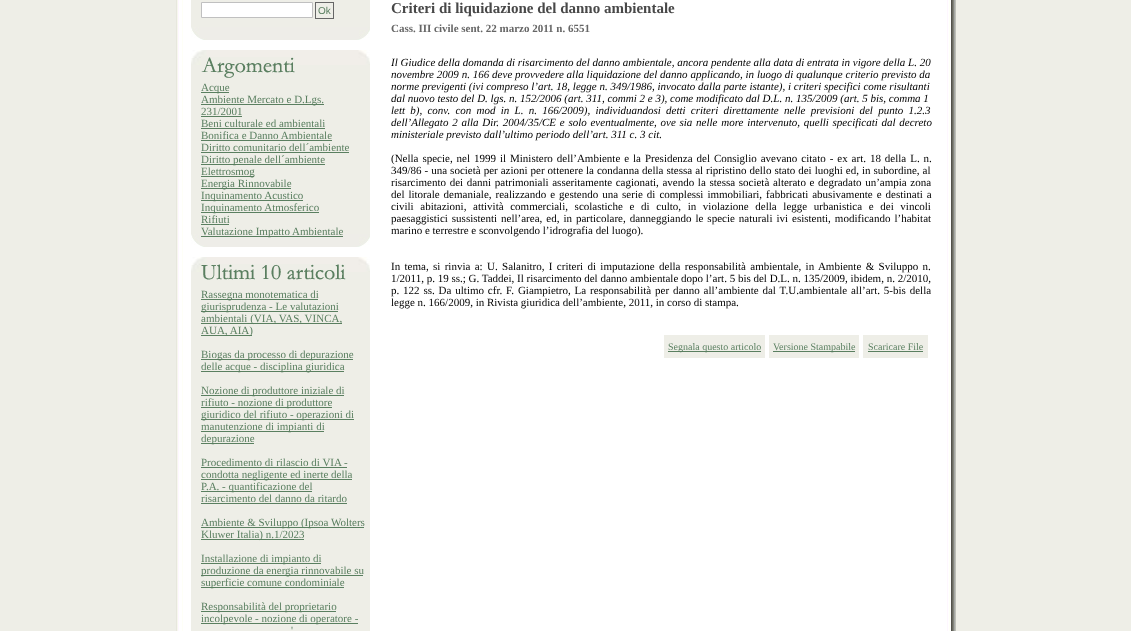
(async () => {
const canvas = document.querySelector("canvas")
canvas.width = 1131
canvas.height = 631
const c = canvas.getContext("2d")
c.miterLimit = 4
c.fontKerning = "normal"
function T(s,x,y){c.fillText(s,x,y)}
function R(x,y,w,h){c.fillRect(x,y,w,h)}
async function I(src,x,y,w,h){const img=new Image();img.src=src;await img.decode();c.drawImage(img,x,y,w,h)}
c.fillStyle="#eeeee7"
R(0,0,1131,631)
await I("1.png",176,0,780,631)
R(191,0,179,27)
await I("2.png",191,27,179,13)
c.fillStyle="#fff"
c.beginPath()
c.rect(201.5,2.5,111,15)
c.fill()
c.strokeStyle="#c0c0c0"
c.stroke()
c.strokeStyle="#666"
c.strokeRect(315.5,2.5,18,16)
c.font="10px Liberation Sans"
c.fillStyle="#5a7f60"
T("Ok",318,14)
c.fillStyle="#eeeee7"
R(191,65,179,169)
await I("3.png",191,50,179,15)
await I("2.png",191,234,179,13)
await I("4.png",201,57,94,21)
c.fillStyle="#5a7f60"
R(201,92,28,1)
c.font="11px Liberation Serif"
T("Acque",201,91)
R(201,104,123,1)
T("Ambiente Mercato e D.Lgs.",201,103)
T("231/2001",201,115)
R(201,116,41,1)
T("Beni culturale ed ambientali",201,127)
R(201,128,124,1)
T("Bonifica e Danno Ambientale",201,139)
R(201,140,131,1)
T("Diritto comunitario dell´ambiente",201,151)
R(201,152,148,1)
R(201,164,124,1)
T("Diritto penale dell´ambiente",201,163)
R(201,176,53,1)
T("Elettrosmog",201,175)
R(201,188,90,1)
T("Energia Rinnovabile",201,187)
R(201,200,102,1)
T("Inquinamento Acustico",201,199)
R(201,212,118,1)
T("Inquinamento Atmosferico",201,211)
T("Rifiuti",201,223)
R(201,224,28,1)
R(201,236,142,1)
T("Valutazione Impatto Ambientale",201,235)
c.fillStyle="#eeeee7"
R(191,272,179,359)
await I("3.png",191,257,179,15)
await I("5.png",201,264,145,16)
c.fillStyle="#5a7f60"
R(201,299,117,1)
T("Rassegna monotematica di",201,298)
R(201,311,137,1)
T("giurisprudenza - Le valutazioni",201,310)
R(201,323,141,1)
T("ambientali (VIA, VAS, VINCA,",201,322)
R(201,335,51,1)
T("AUA, AIA)",201,334)
R(201,359,152,1)
T("Biogas da processo di depurazione",201,358)
R(201,371,143,1)
T("delle acque - disciplina giuridica",201,370)
R(201,395,143,1)
T("Nozione di produttore iniziale di",201,394)
R(201,407,131,1)
T("rifiuto - nozione di produttore",201,406)
R(201,419,153,1)
T("giuridico del rifiuto - operazioni di",201,418)
R(201,431,123,1)
T("manutenzione di impianti di",201,430)
R(201,443,53,1)
T("depurazione",201,442)
T("Procedimento di rilascio di VIA -",201,466)
R(201,467,146,1)
R(201,479,151,1)
T("condotta negligente ed inerte della",201,478)
R(201,491,111,1)
T("P.A. - quantificazione del",201,490)
T("risarcimento del danno da ritardo",201,502)
R(201,503,146,1)
R(201,527,163,1)
T("Ambiente & Sviluppo (Ipsoa Wolters",201,526)
R(201,539,103,1)
T("Kluwer Italia) n.1/2023",201,538)
R(201,563,120,1)
T("Installazione di impianto di",201,562)
R(201,575,162,1)
T("produzione da energia rinnovabile su",201,574)
R(201,587,143,1)
T("superficie comune condominiale",201,586)
R(201,611,135,1)
T("Responsabilità del proprietario",201,610)
R(201,623,157,1)
T("incolpevole - nozione di operatore -",201,622)
T("'",291,634)
c.font="bold 15px Liberation Serif"
c.fillStyle="#484848"
T("Criteri di liquidazione del danno ambientale",391,13)
c.font="bold 11px Liberation Serif"
c.fillStyle="#666"
T("Cass. III civile sent. 22 marzo 2011 n. 6551",391,32)
c.font="italic 11px Liberation Serif"
c.fillStyle="#000"
T("Il Giudice della domanda di risarcimento del danno ambientale, ancora pendente alla data di entrata in vigore della L. 20",391,66)
c.wordSpacing="0.1px"
T("novembre 2009 n. 166 deve provvedere alla liquidazione del danno applicando, in luogo di qualunque criterio previsto da",391,78)
c.wordSpacing="0px"
T("norme previgenti (ivi compreso l’art. 18, legge n. 349/1986, invocato dalla parte istante), i criteri specifici come risultanti",391,90)
T("dal nuovo testo del D. lgs. n. 152/2006 (art. 311, commi 2 e 3), come modificato dal D.L. n. 135/2009 (art. 5 bis, comma 1",391,102)
c.wordSpacing="2.5px"
T("lett b), conv. con mod in L. n. 166/2009), individuandosi detti criteri direttamente nelle previsioni del punto 1.2.3",391,114)
c.wordSpacing="1px"
T("dell’Allegato 2 alla Dir. 2004/35/CE e solo eventualmente, ove sia nelle more intervenuto, quelli specificati dal decreto",391,126)
c.wordSpacing="0px"
T("ministeriale previsto dall’ultimo periodo dell’art. 311 c. 3 cit.",391,138)
c.wordSpacing="1.2px"
c.font="11px Liberation Serif"
T("(Nella specie, nel 1999 il Ministero dell’Ambiente e la Presidenza del Consiglio avevano citato - ex art. 18 della L. n.",391,162)
c.wordSpacing="0.25px"
T("349/86 - una società per azioni per ottenere la condanna della stessa al ripristino dello stato dei luoghi ed, in subordine, al",391,174)
c.wordSpacing="0.9px"
T("risarcimento dei danni patrimoniali asseritamente cagionati, avendo la stessa società alterato e degradato un’ampia zona",391,186)
c.wordSpacing="1.25px"
T("del litorale demaniale, realizzando e gestendo una serie di complessi immobiliari, fabbricati abusivamente e destinati a",391,198)
c.wordSpacing="3.9px"
T("civili abitazioni, attività commerciali, scolastiche e di culto, in violazione della legge urbanistica e dei vincoli",391,210)
c.wordSpacing="1.25px"
T("paesaggistici sussistenti nell’area, ed, in particolare, danneggiando le specie naturali ivi esistenti, modificando l’habitat",391,222)
c.wordSpacing="0px"
T("marino e terrestre e sconvolgendo l’idrografia del luogo).",391,234)
c.wordSpacing="1.6px"
T("In tema, si rinvia a: U. Salanitro, I criteri di imputazione della responsabilità ambientale, in Ambiente & Sviluppo n.",391,270)
c.wordSpacing="0px"
T("1/2011, p. 19 ss.; G. Taddei, Il risarcimento del danno ambientale dopo l’art. 5 bis del D.L. n. 135/2009, ibidem, n. 2/2010,",391,282)
c.wordSpacing="1.1px"
T("p. 122 ss. Da ultimo cfr. F. Giampietro, La responsabilità per danno all’ambiente dal T.U.ambientale all’art. 5-bis della",391,294)
c.wordSpacing="0px"
T("legge n. 166/2009, in Rivista giuridica dell’ambiente, 2011, in corso di stampa.",391,306)
c.fillStyle="#eeeee7"
R(664,335,101,23)
c.fillStyle="#5a7f60"
R(668,351,93,1)
c.font="10px Liberation Serif"
T("Segnala questo articolo",668,350)
c.fillStyle="#eeeee7"
R(769,335,90,23)
c.fillStyle="#5a7f60"
R(773,351,82,1)
T("Versione Stampabile",773,350)
c.fillStyle="#eeeee7"
R(863,335,65,23)
c.fillStyle="#5a7f60"
T("Scaricare File",868,350)
R(868,351,55,1)
})()
